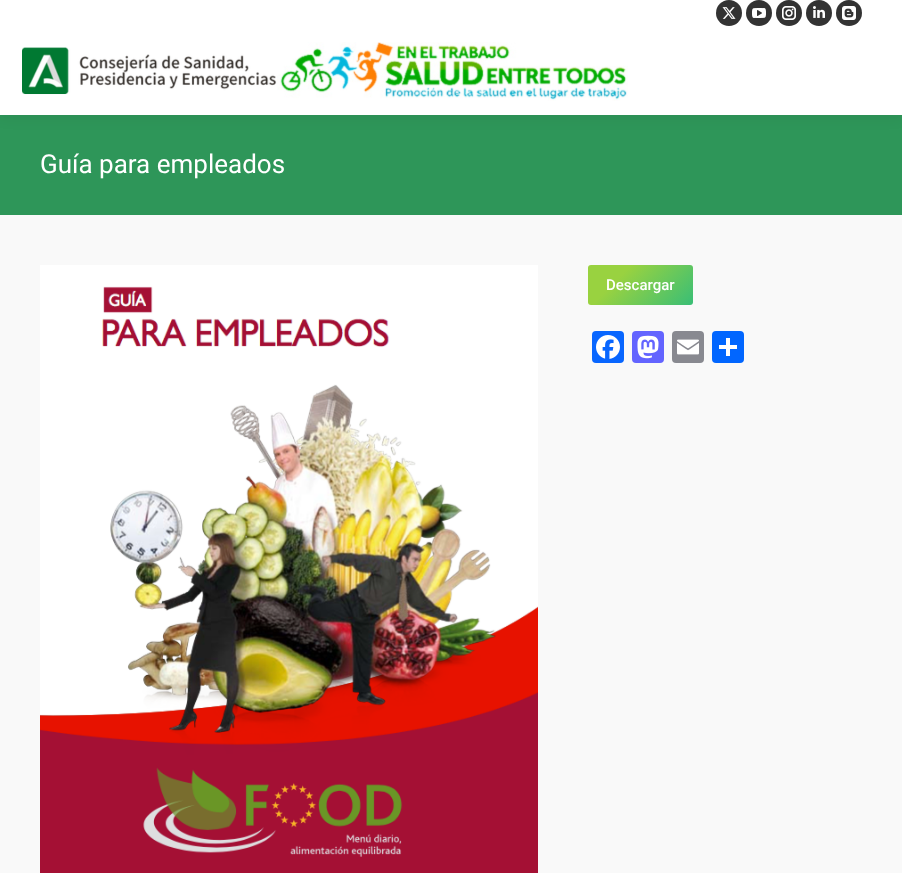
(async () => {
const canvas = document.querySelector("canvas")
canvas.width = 902
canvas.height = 873
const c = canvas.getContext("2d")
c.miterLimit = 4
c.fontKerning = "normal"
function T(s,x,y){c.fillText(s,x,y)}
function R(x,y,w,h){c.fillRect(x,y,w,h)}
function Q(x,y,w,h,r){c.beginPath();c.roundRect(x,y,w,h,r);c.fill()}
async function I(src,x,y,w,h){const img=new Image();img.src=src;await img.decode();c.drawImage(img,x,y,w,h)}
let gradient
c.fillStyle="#f9f9f9"
R(0,0,902,873)
c.fillStyle="#2e9659"
R(0,115,902,100)
c.fillStyle="#00000012"
c.filter="blur(7.5px)"
c.beginPath()
c.rect(-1,-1,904,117)
c.fill()
c.filter="none"
c.fillStyle="#fff"
R(0,0,902,115)
c.fillStyle="#333"
c.beginPath()
c.arc(729,13,13,0,7)
c.fill()
await I("1.png",722,7,14,12)
c.beginPath()
c.arc(759,13,13,0,7)
c.fill()
await I("2.png",752,8,14,10)
c.beginPath()
c.arc(789,13,13,0,7)
c.fill()
await I("3.png",782,6,14,14)
c.beginPath()
c.arc(819,13,13,0,7)
c.fill()
await I("4.png",813,6,12,12)
c.beginPath()
c.arc(849,13,13,0,7)
c.fill()
await I("5.png",842,6,14,14)
await I("6.png",22,42,606,59)
c.font="26px Roboto"
c.fillStyle="#fff"
T("Guía para empleados",40,173)
await I("7.png",40,265,498,608)
gradient = c.createLinearGradient(604,249,677,321)
gradient.addColorStop(.3,"#99d240")
gradient.addColorStop(1,"#39be76")
c.fillStyle = gradient
Q(588,265,105,40,3)
c.font="500 15px Roboto"
c.fillStyle="#fff"
T("Descargar",606,290)
c.fillStyle="#0866ff"
Q(592,331,32,32,4)
await I("8.png",596,335,24,24)
c.fillStyle="#6364ff"
Q(632,331,32,32,4)
await I("9.png",637,335,22,24)
c.fillStyle="#888990"
Q(672,331,32,32,4)
await I("10.png",677,339,22,16)
c.fillStyle="#0166ff"
Q(712,331,32,32,4)
c.fillStyle="#fff"
R(726,338,4,18)
R(719,345,18,4)
})()
